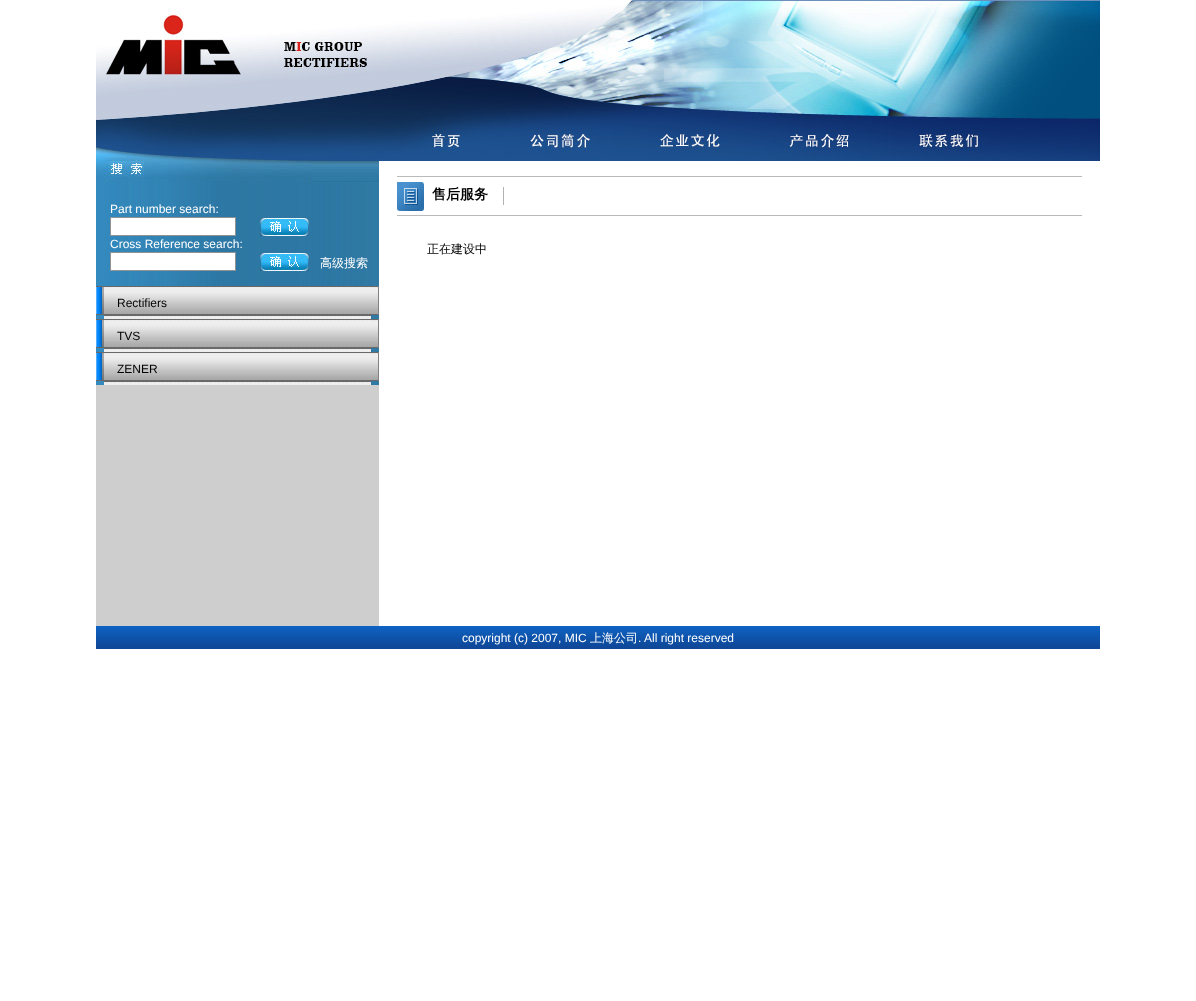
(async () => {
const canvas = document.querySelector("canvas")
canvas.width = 1196
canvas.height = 1001
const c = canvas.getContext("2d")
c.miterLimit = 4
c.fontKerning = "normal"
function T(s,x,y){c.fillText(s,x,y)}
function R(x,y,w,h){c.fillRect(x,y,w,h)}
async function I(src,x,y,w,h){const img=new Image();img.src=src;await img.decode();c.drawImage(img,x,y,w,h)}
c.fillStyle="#fff"
R(0,0,1196,1001)
await I("1.png",96,0,1004,161)
c.fillStyle="#cecece"
R(96,385,283,241)
await I("2.png",96,182,283,104)
await I("3.png",96,161,283,21)
c.font="12px Liberation Sans"
c.fillStyle="#fff"
T("Part number search:",110,213)
c.beginPath()
c.rect(110.5,217.5,125,18)
c.fill()
c.strokeStyle="#919294"
c.stroke()
await I("4.png",260,218,49,18)
T("Cross Reference search:",110,248)
c.beginPath()
c.rect(110.5,252.5,125,18)
c.fill()
c.stroke()
await I("4.png",260,253,49,18)
c.font="500 12px WenQuanYi Zen Hei"
T("高级搜索",320,267)
await I("5.png",96,315,283,70)
await I("6.png",96,286,8,29)
await I("7.png",104,286,267,33)
c.font="12px Liberation Sans"
c.fillStyle="#000"
T("Rectifiers",117,307)
await I("8.png",371,286,8,29)
await I("6.png",96,319,8,29)
await I("7.png",104,319,267,33)
T("TVS",117,340)
await I("8.png",371,319,8,29)
await I("6.png",96,352,8,29)
await I("7.png",104,352,267,33)
T("ZENER",117,373)
await I("8.png",371,352,8,29)
c.fillStyle="#bababa"
R(397,176,685,1)
await I("9.png",397,182,27,29)
c.font="bold 14px WenQuanYi Zen Hei"
c.fillStyle="#000"
T("售后服务",432,199)
c.fillStyle="#b2b2b2"
R(503,187,1,18)
c.fillStyle="#bababa"
R(397,215,685,1)
c.font="500 12px WenQuanYi Zen Hei"
c.fillStyle="#000"
T("正在建设中",427,253)
await I("10.png",96,626,1004,23)
c.font="12px Liberation Sans"
c.fillStyle="#fff"
T("copyright (c) 2007, MIC",462,642)
c.font="500 12px WenQuanYi Zen Hei"
T("上海公司",590,642)
c.font="12px Liberation Sans"
T(". All right reserved",638,642)
})()
